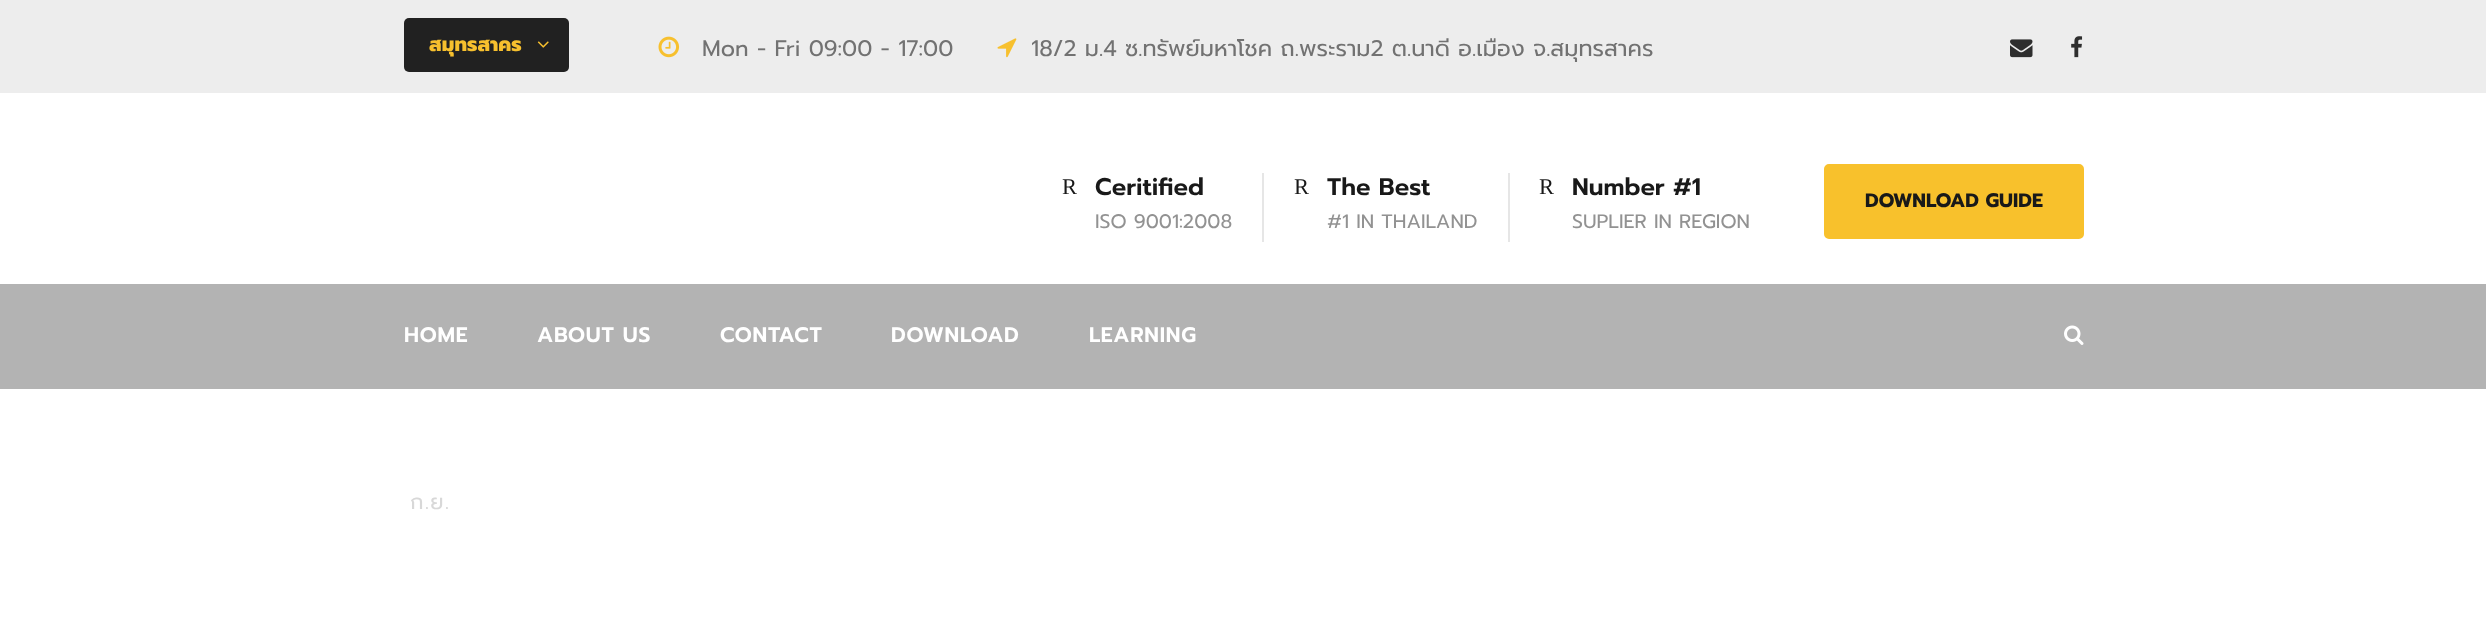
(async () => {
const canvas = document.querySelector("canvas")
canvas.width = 2486
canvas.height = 626
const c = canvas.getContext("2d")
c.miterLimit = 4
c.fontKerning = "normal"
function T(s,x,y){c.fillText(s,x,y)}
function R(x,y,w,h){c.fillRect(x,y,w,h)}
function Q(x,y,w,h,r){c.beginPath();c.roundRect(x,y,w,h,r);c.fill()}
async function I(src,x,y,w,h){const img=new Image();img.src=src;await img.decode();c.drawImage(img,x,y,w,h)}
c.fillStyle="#fff"
R(0,0,2486,626)
c.fillStyle="#ededed"
R(0,0,2486,93)
c.fillStyle="#212121"
Q(404,18,165,54,5)
c.font="800 19.5px Prompt"
c.fillStyle="#f7c02e"
T("สมุทรสาคร",429,51)
await I("1.png",537,41,12,7)
await I("2.png",658,36,22,22)
c.font="22.5px Prompt"
c.fillStyle="#727272"
T("Mon - Fri 09:00 - 17:00",702,56)
await I("3.png",997,38,20,20)
T("18/2 ม.4 ซ.ทรัพย์มหาโชค ถ.พระราม2 ต.นาดี อ.เมือง จ.สมุทรสาคร",1031,56)
await I("4.png",2010,39,23,19)
await I("5.png",2071,36,12,22)
c.font="22.5px Liberation Serif"
c.fillStyle="#191919"
T("R",1062,194)
c.font="600 24px Prompt"
T("Ceritified",1095,195)
c.font="19.5px Prompt"
c.fillStyle="#929292"
T("ISO 9001:2008",1095,228)
c.fillStyle="#e6e6e6"
R(1262,173,2,69)
c.font="22.5px Liberation Serif"
c.fillStyle="#191919"
T("R",1294,194)
c.font="600 24px Prompt"
T("The Best",1327,195)
c.font="19.5px Prompt"
c.fillStyle="#929292"
T("#1 IN THAILAND",1327,228)
c.fillStyle="#e6e6e6"
R(1508,173,2,69)
c.font="22.5px Liberation Serif"
c.fillStyle="#191919"
T("R",1539,194)
c.font="600 24px Prompt"
T("Number #1",1572,195)
c.font="19.5px Prompt"
c.fillStyle="#929292"
T("SUPLIER IN REGION",1572,228)
c.fillStyle="#f8c12c"
c.beginPath()
c.roundRect(1825.5,165.5,257,72,3.5)
c.fill()
c.strokeStyle="#f8c12c"
c.lineWidth=3
c.stroke()
c.font="bold 19.5px Prompt"
c.fillStyle="#191919"
T("DOWNLOAD GUIDE",1865,207)
c.fillStyle="#b3b3b3"
R(0,284,2486,105)
c.letterSpacing="0.75px"
c.font="600 21px Prompt"
c.fillStyle="#fff"
T("HOME",404,342)
T("ABOUT US",537,342)
T("CONTACT",720,342)
T("DOWNLOAD",891,342)
T("LEARNING",1089,342)
await I("6.png",2064,325,20,20)
c.letterSpacing="1.5px"
c.font="21px Prompt"
c.fillStyle="#d8d8d8"
T("ก.ย.",410,509)
})()
